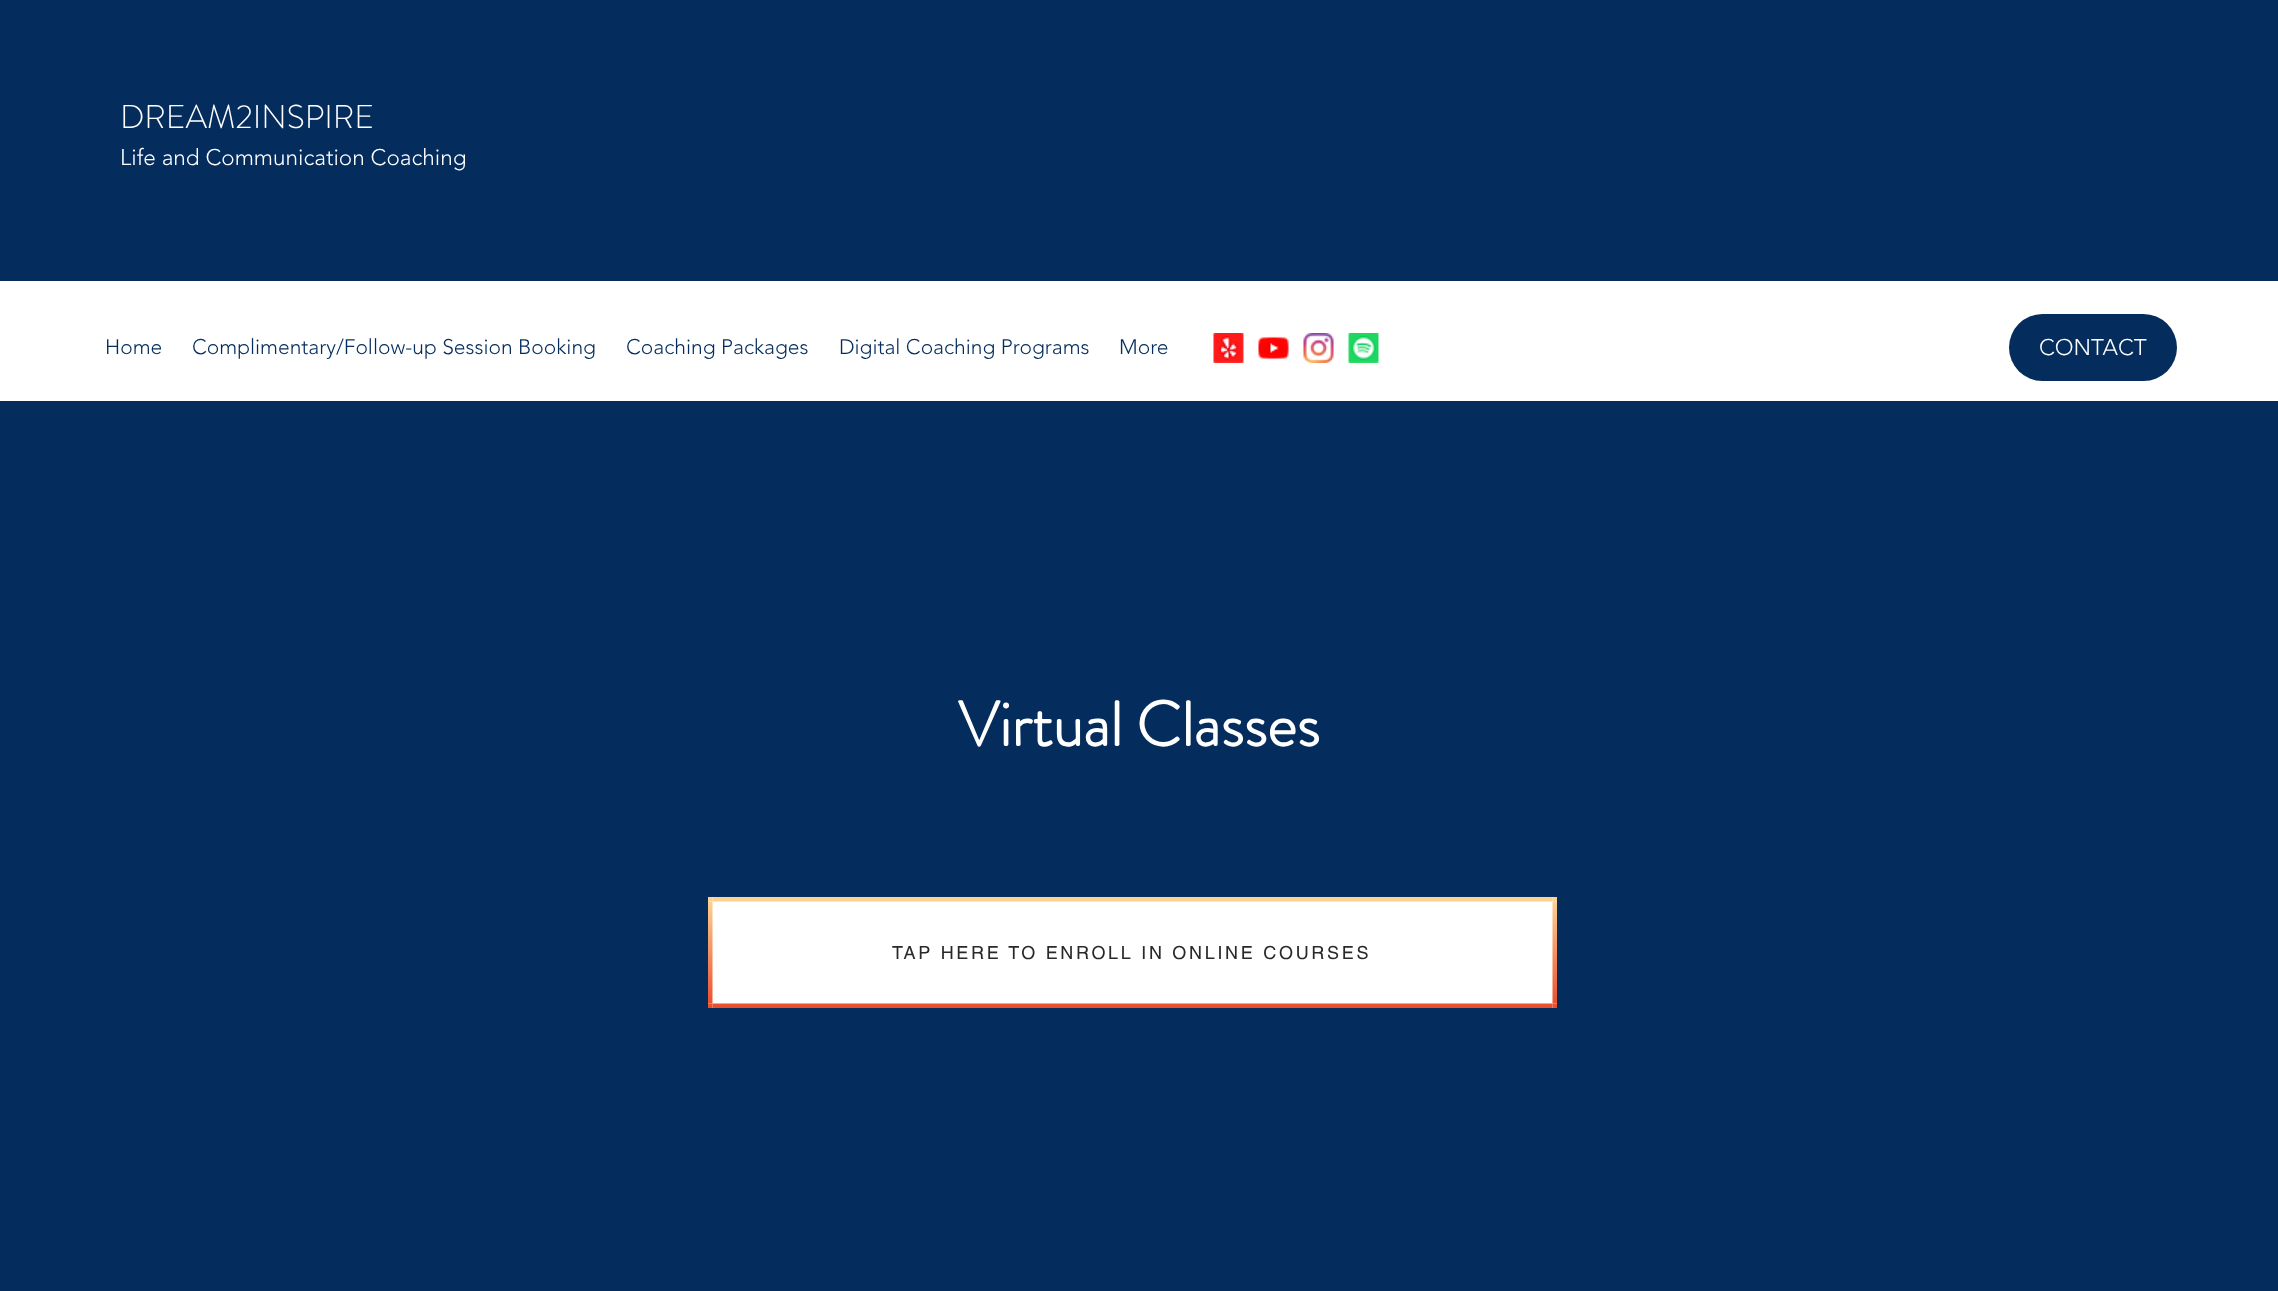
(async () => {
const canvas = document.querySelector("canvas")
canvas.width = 2278
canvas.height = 1291
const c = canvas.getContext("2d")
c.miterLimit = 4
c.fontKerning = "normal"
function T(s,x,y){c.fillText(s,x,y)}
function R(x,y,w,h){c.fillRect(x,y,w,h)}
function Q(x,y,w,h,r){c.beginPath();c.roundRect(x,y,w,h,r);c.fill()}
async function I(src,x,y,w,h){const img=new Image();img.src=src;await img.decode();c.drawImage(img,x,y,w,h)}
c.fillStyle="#042c5c"
R(0,0,2278,1291)
c.font="300 33px 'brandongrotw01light'"
c.fillStyle="#fff"
T("DREAM2INSPIRE",120,128)
c.font="300 22.5px 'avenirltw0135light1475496'"
T("Life and Communication Coaching",120,165)
R(0,281,2278,120)
c.font="300 21px 'avenirltw0135light1475496'"
c.fillStyle="#042c5c"
T("Home",105,354)
T("Complimentary/Follow-up Session Booking",192,354)
T("Coaching Packages",626,354)
T("Digital Coaching Programs",839,354)
T("More",1119,354)
await I("1.png",1213,333,31,30)
await I("2.png",1258,336,31,24)
await I("3.png",1303,333,31,30)
await I("4.png",1348,333,31,30)
Q(2009,314,168,67,33.5)
c.font="300 22.5px 'avenirltw0135light1475496'"
c.fillStyle="#fff"
T("CONTACT",2039,355)
c.font="bold 63px 'brandongrotw01light'"
T("Virtual Classes",958,746)
R(708,897,849,111)
await I("5.png",708,897,849,111)
c.letterSpacing="2.7px"
c.font="18px helvetica"
c.fillStyle="#292929"
T("TAP HERE TO ENROLL IN ONLINE COURSES",892,959)
})()
